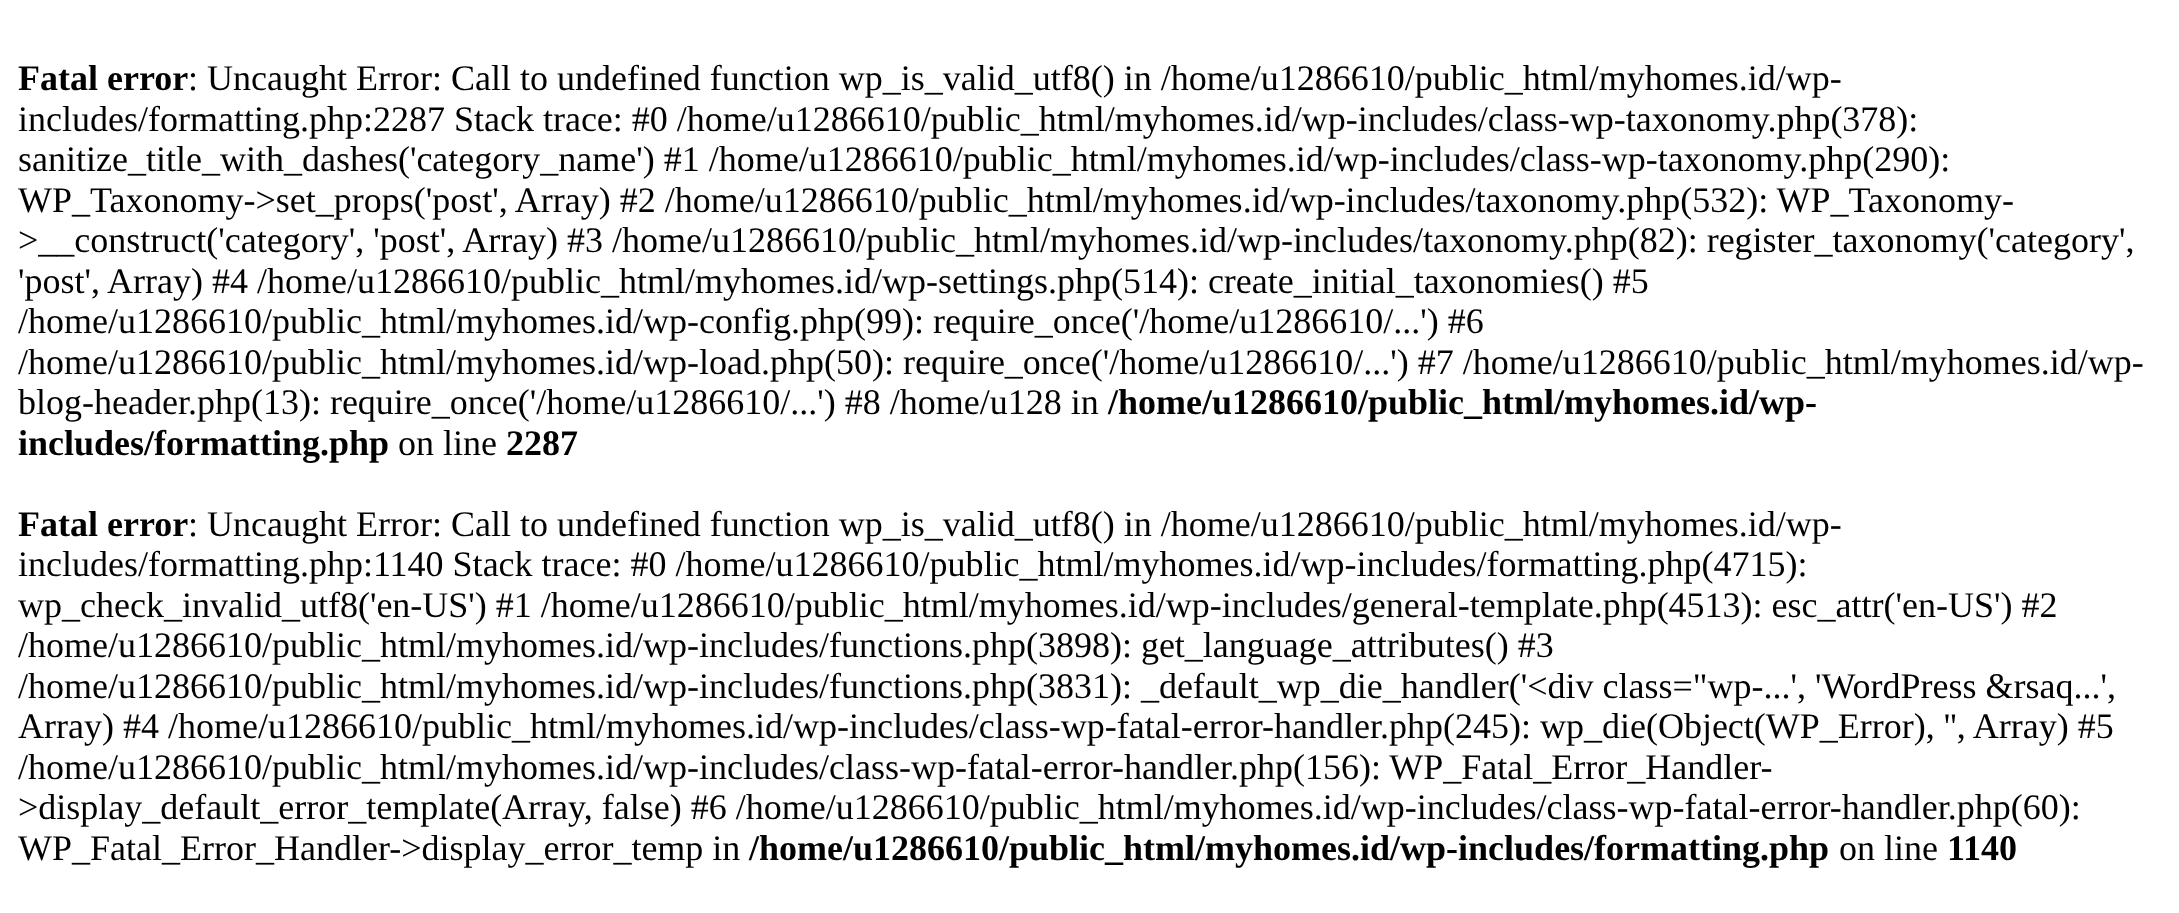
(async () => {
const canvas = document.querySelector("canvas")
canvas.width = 2179
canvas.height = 913
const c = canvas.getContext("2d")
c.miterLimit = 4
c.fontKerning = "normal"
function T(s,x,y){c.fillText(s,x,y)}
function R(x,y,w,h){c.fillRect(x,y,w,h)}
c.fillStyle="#fff"
R(0,0,2179,913)
c.font="bold 36px Liberation Serif"
c.fillStyle="#000"
T("Fatal error",18,90)
c.font="36px Liberation Serif"
T(": Uncaught Error: Call to undefined function wp_is_valid_utf8() in /home/u1286610/public_html/myhomes.id/wp-",188,90)
T("includes/formatting.php:2287 Stack trace: #0 /home/u1286610/public_html/myhomes.id/wp-includes/class-wp-taxonomy.php(378):",18,131)
T("sanitize_title_with_dashes('category_name') #1 /home/u1286610/public_html/myhomes.id/wp-includes/class-wp-taxonomy.php(290):",18,171)
T("WP_Taxonomy->set_props('post', Array) #2 /home/u1286610/public_html/myhomes.id/wp-includes/taxonomy.php(532): WP_Taxonomy-",18,212)
T(">__construct('category', 'post', Array) #3 /home/u1286610/public_html/myhomes.id/wp-includes/taxonomy.php(82): register_taxonomy('category',",18,252)
T("'post', Array) #4 /home/u1286610/public_html/myhomes.id/wp-settings.php(514): create_initial_taxonomies() #5",18,293)
T("/home/u1286610/public_html/myhomes.id/wp-config.php(99): require_once('/home/u1286610/...') #6",18,333)
T("/home/u1286610/public_html/myhomes.id/wp-load.php(50): require_once('/home/u1286610/...') #7 /home/u1286610/public_html/myhomes.id/wp-",18,374)
T("blog-header.php(13): require_once('/home/u1286610/...') #8 /home/u128 in",18,414)
c.font="bold 36px Liberation Serif"
T("/home/u1286610/public_html/myhomes.id/wp-",1108,414)
T("includes/formatting.php",18,455)
c.font="36px Liberation Serif"
T("on line",398,455)
c.font="bold 36px Liberation Serif"
T("2287",506,455)
T("Fatal error",18,536)
c.font="36px Liberation Serif"
T(": Uncaught Error: Call to undefined function wp_is_valid_utf8() in /home/u1286610/public_html/myhomes.id/wp-",188,536)
T("includes/formatting.php:1140 Stack trace: #0 /home/u1286610/public_html/myhomes.id/wp-includes/formatting.php(4715):",18,576)
T("wp_check_invalid_utf8('en-US') #1 /home/u1286610/public_html/myhomes.id/wp-includes/general-template.php(4513): esc_attr('en-US') #2",18,617)
T("/home/u1286610/public_html/myhomes.id/wp-includes/functions.php(3898): get_language_attributes() #3",18,657)
T("/home/u1286610/public_html/myhomes.id/wp-includes/functions.php(3831): _default_wp_die_handler('<div class=\"wp-...', 'WordPress &rsaq...',",18,698)
T("Array) #4 /home/u1286610/public_html/myhomes.id/wp-includes/class-wp-fatal-error-handler.php(245): wp_die(Object(WP_Error), '', Array) #5",18,738)
T("/home/u1286610/public_html/myhomes.id/wp-includes/class-wp-fatal-error-handler.php(156): WP_Fatal_Error_Handler-",18,779)
T(">display_default_error_template(Array, false) #6 /home/u1286610/public_html/myhomes.id/wp-includes/class-wp-fatal-error-handler.php(60):",18,819)
T("WP_Fatal_Error_Handler->display_error_temp in",18,860)
c.font="bold 36px Liberation Serif"
T("/home/u1286610/public_html/myhomes.id/wp-includes/formatting.php",749,860)
c.font="36px Liberation Serif"
T("on line",1839,860)
c.font="bold 36px Liberation Serif"
T("1140",1947,860)
})()
